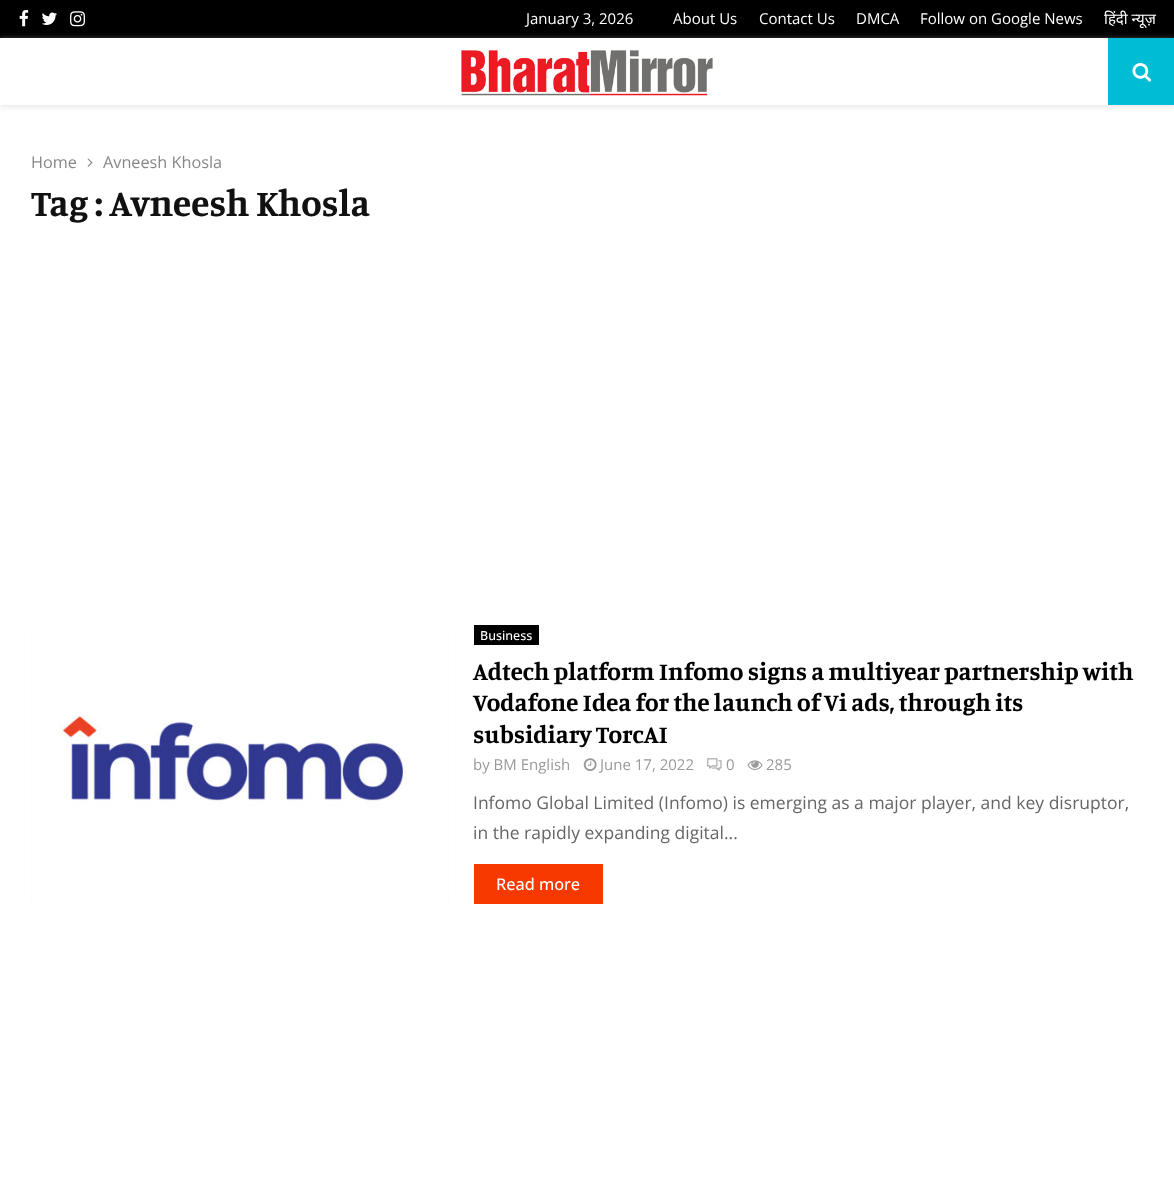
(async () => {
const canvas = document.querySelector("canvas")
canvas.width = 1174
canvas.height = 1197
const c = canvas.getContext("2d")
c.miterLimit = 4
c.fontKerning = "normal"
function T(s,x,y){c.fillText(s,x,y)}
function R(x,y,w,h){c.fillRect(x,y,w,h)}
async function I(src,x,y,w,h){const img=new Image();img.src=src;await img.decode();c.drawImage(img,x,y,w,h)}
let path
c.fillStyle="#fff"
R(0,0,1174,1197)
c.fillStyle="#000"
R(0,0,1174,38)
await I("1.png",19,10,10,17)
await I("2.png",41,12,16,13)
await I("3.png",70,11,15,16)
c.font="15px Open Sans"
c.fillStyle="#fff"
T("January 3, 2026",526,24)
T("About Us",673,24)
T("Contact Us",759,24)
T("DMCA",856,24)
T("Follow on Google News",920,24)
c.font="15px Noto Sans"
T("हिंदी न्यूज़",1104,24)
c.save()
path = new Path2D("M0 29h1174v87h-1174zm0 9h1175v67h-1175z")
c.clip(path,"evenodd")
c.fillStyle="#bebebe75"
c.filter="blur(3px)"
c.beginPath()
c.rect(0,39,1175,67)
c.fill()
c.filter="none"
c.restore()
await I("4.png",461,50,252,46)
c.fillStyle="#00bcd4"
R(1108,38,66,67)
await I("5.png",1132,63,20,19)
c.font="16.25px Open Sans"
c.fillStyle="#888"
T("Home",31,168)
await I("6.png",87,158,6,9)
T("Avneesh Khosla",103,168)
c.font="bold 37.5px Manuale"
c.fillStyle="#111"
T("Tag : Avneesh Khosla",31,216)
c.fillStyle="#f5f5f5"
R(31,625,418,279)
await I("7.png",31,625,418,279)
c.fillStyle="#000"
R(474,625,65,20)
c.font="500 12.5px Open Sans"
c.fillStyle="#fff"
T("Business",480,640)
c.font="bold 25px Manuale"
c.fillStyle="#000"
T("Adtech platform Infomo signs a multiyear partnership with",473,680)
T("Vodafone Idea for the launch of Vi ads, through its",473,711)
T("subsidiary TorcAI",473,743)
c.font="15px Open Sans"
c.fillStyle="#999"
T("by BM English",473,770)
await I("8.png",583,758,14,13)
T("June 17, 2022",600,770)
await I("9.png",707,758,15,13)
T("0",726,770)
await I("10.png",747,760,16,10)
T("285",766,770)
c.font="17.5px Open Sans"
c.fillStyle="#666"
T("Infomo Global Limited (Infomo) is emerging as a major player, and key disruptor,",473,809)
T("in the rapidly expanding digital...",473,839)
c.fillStyle="#f73900"
R(474,864,129,40)
c.font="500 16.25px Open Sans"
c.fillStyle="#fff"
T("Read more",496,890)
})()
